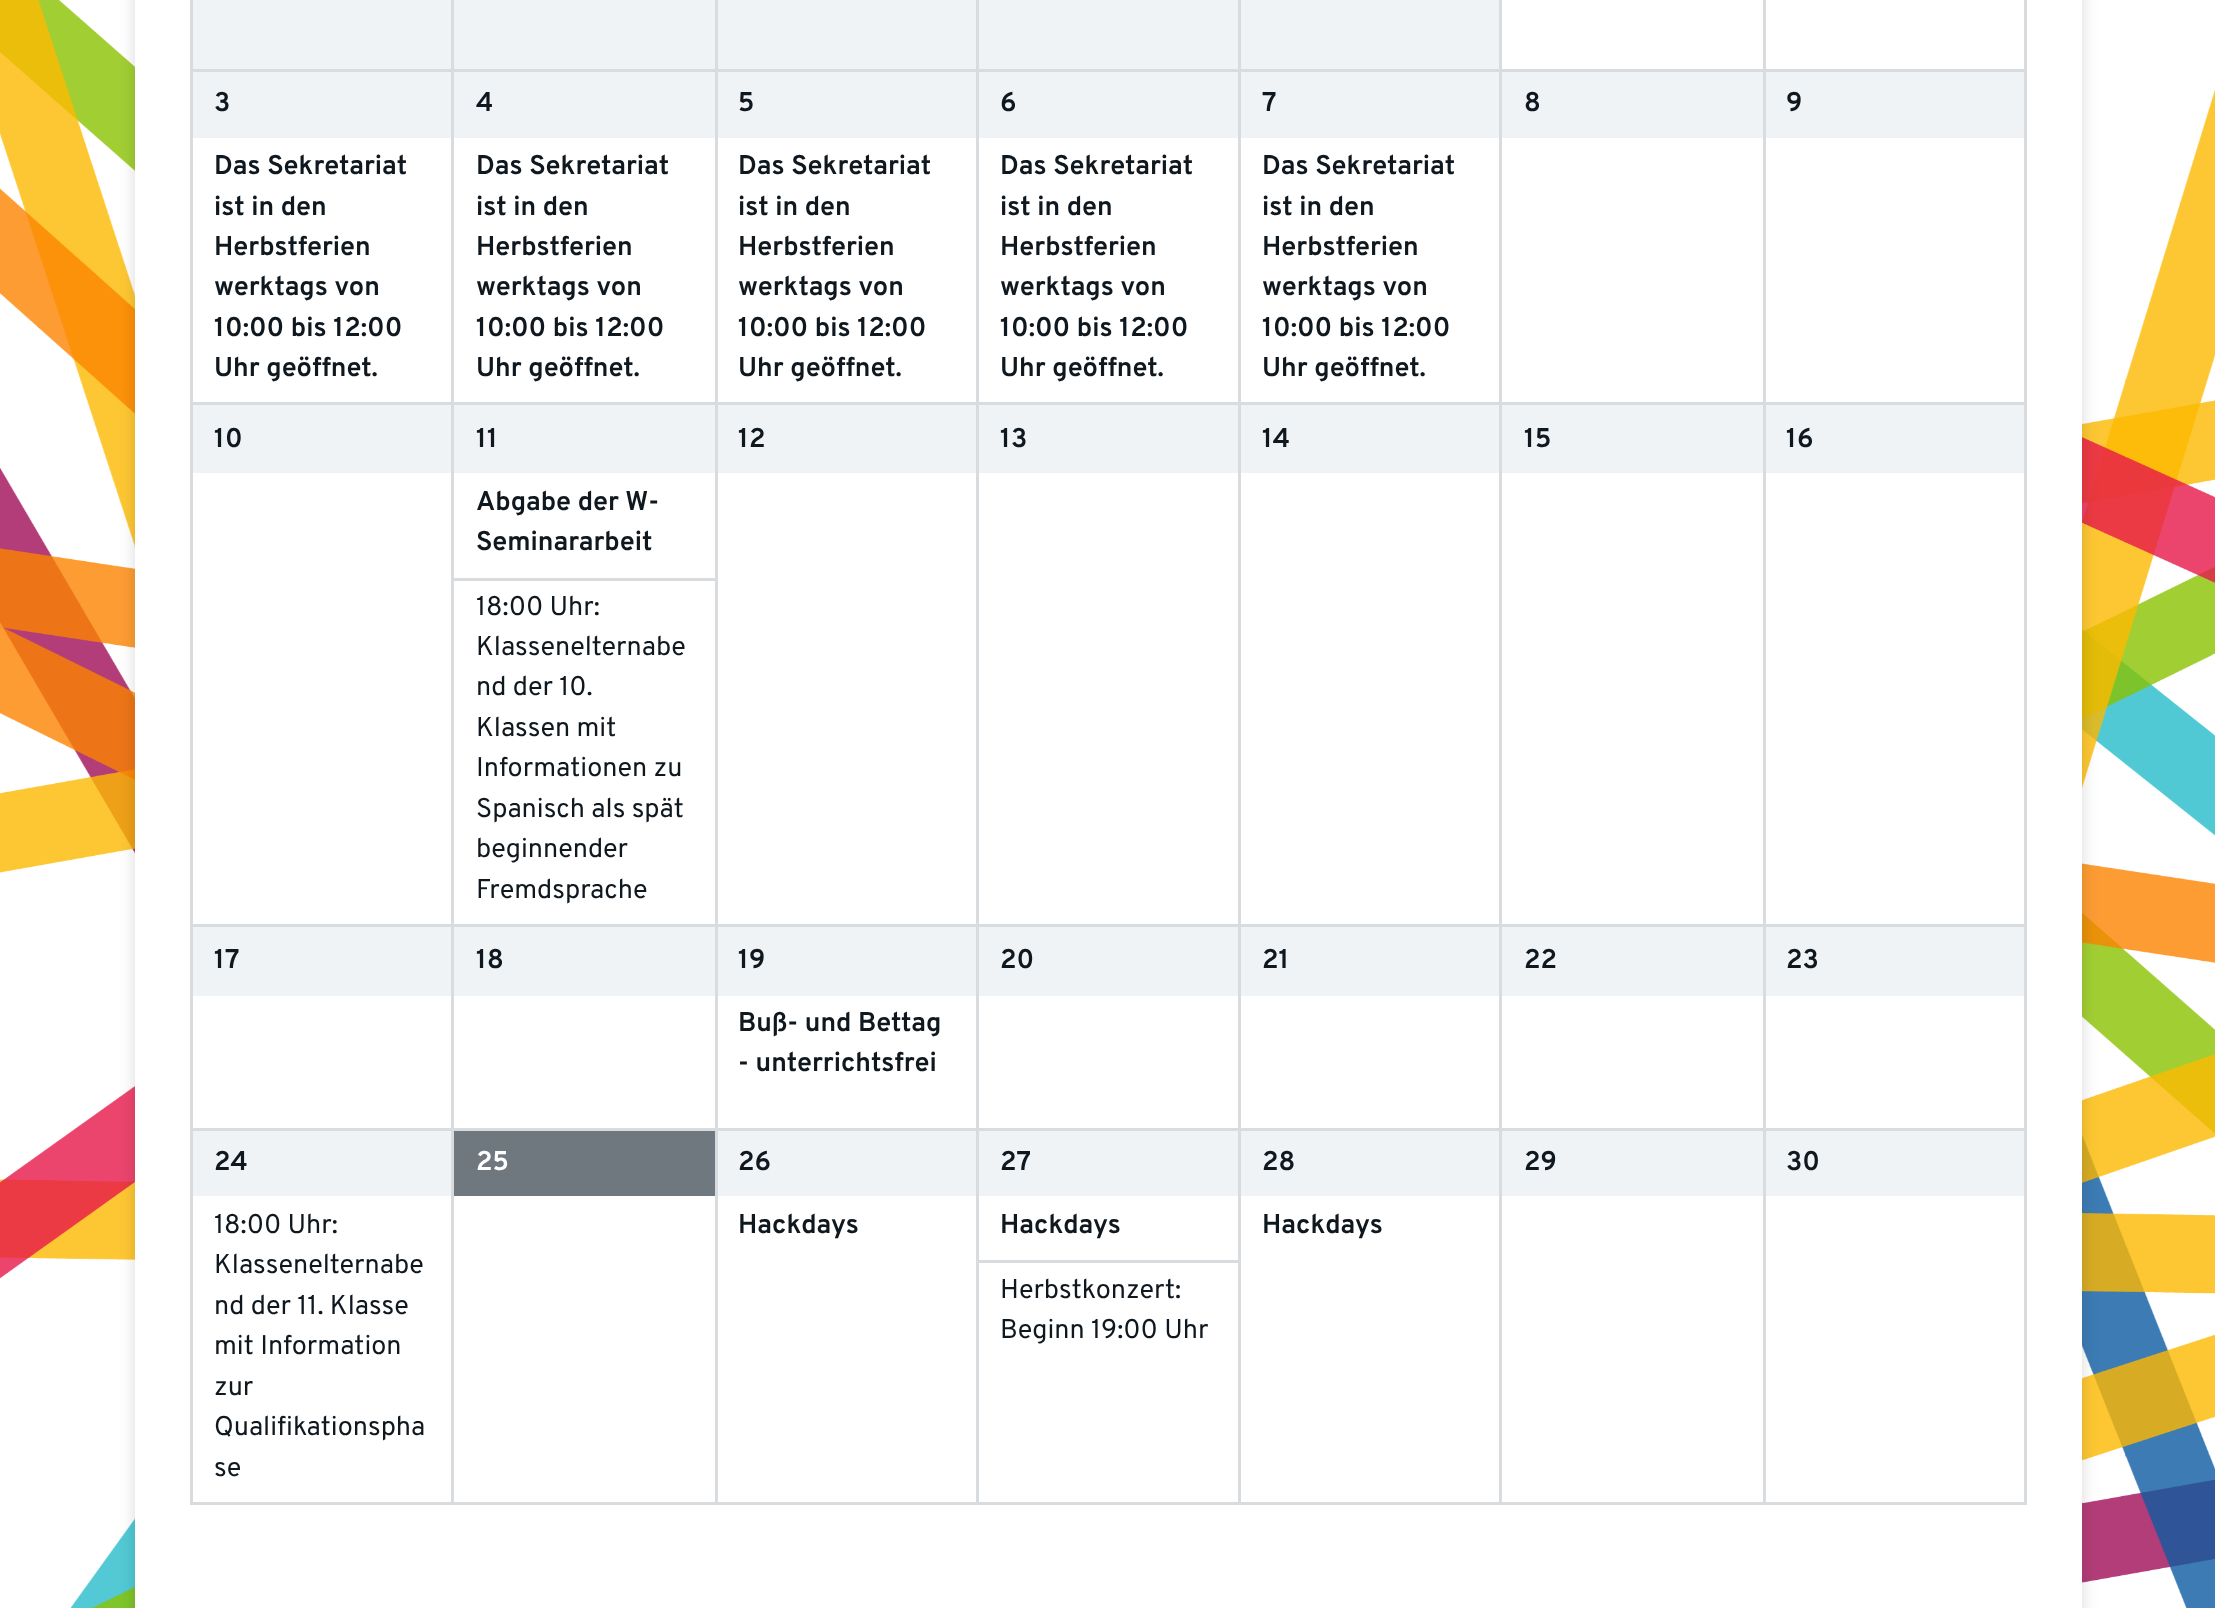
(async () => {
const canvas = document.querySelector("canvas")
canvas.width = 2215
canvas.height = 1608
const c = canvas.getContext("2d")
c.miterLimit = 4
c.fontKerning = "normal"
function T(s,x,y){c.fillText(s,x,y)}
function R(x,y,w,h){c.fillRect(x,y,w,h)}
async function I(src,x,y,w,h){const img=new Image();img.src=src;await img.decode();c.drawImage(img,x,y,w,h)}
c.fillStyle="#fff"
R(0,0,2215,1608)
await I("1.png",0,0,2215,1608)
c.fillStyle="#00000026"
c.filter="blur(8px)"
c.beginPath()
c.rect(135,-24,1947,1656)
c.fill()
c.filter="none"
c.fillStyle="#fff"
R(135,0,1947,1608)
c.fillStyle="#f0f3f6"
R(193,0,258,69)
R(454,0,261,69)
c.fillStyle="#d9dcdf"
R(1763,69,264,3)
R(1763,402,264,3)
R(1763,924,264,3)
R(1763,1128,264,3)
R(2024,1128,3,376)
R(1763,1502,264,3)
R(1763,1128,3,376)
R(1499,1128,267,3)
R(1763,924,3,206)
R(1499,924,267,3)
R(1763,402,3,525)
R(1499,402,267,3)
R(1763,69,3,335)
R(1499,69,267,3)
R(1499,1502,267,3)
R(1499,1128,3,376)
R(1238,1128,264,3)
R(1499,924,3,206)
R(1238,924,264,3)
R(1499,402,3,525)
R(1238,402,264,3)
R(1499,69,3,335)
R(1238,69,264,3)
R(1238,1502,264,3)
R(1238,1128,3,376)
R(976,1128,264,3)
R(1238,924,3,206)
R(976,924,264,3)
R(1238,402,3,525)
R(976,402,264,3)
R(1238,69,3,335)
R(976,69,264,3)
R(976,1502,264,3)
R(976,1128,3,376)
R(715,1128,264,3)
R(976,924,3,206)
R(715,924,264,3)
R(976,402,3,525)
R(715,402,264,3)
R(976,69,3,335)
R(715,69,264,3)
R(715,1502,264,3)
R(715,1128,3,376)
R(451,1128,267,3)
R(715,924,3,206)
R(451,924,267,3)
R(715,402,3,525)
R(451,402,267,3)
R(715,69,3,335)
R(451,69,267,3)
R(451,1502,267,3)
R(451,1128,3,376)
R(190,1128,264,3)
R(451,924,3,206)
R(190,924,264,3)
R(451,402,3,525)
R(190,402,264,3)
R(451,69,3,335)
R(190,69,264,3)
R(451,0,3,72)
c.fillStyle="#f0f3f6"
R(718,0,258,69)
c.fillStyle="#d9dcdf"
R(715,0,3,72)
c.fillStyle="#f0f3f6"
R(979,0,259,69)
c.fillStyle="#d9dcdf"
R(976,0,3,72)
c.fillStyle="#f0f3f6"
R(1241,0,258,69)
c.fillStyle="#d9dcdf"
R(1238,0,3,72)
R(1499,0,3,72)
R(1763,0,3,72)
R(190,1502,264,3)
R(190,1128,3,376)
R(190,924,3,206)
R(190,402,3,525)
R(190,0,3,404)
c.fillStyle="#f0f3f6"
R(193,72,258,66)
c.font="bold 27px Overpass"
c.fillStyle="#10181f"
T("3",214,111)
T("Das Sekretariat",214,174)
T("ist in den",214,215)
T("Herbstferien",214,255)
T("werktags von",214,295)
T("10:00 bis 12:00",214,336)
T("Uhr geöffnet.",214,376)
c.fillStyle="#f0f3f6"
R(454,72,261,66)
c.fillStyle="#10181f"
T("4",476,111)
T("Das Sekretariat",476,174)
T("ist in den",476,215)
T("Herbstferien",476,255)
T("werktags von",476,295)
T("10:00 bis 12:00",476,336)
T("Uhr geöffnet.",476,376)
c.fillStyle="#f0f3f6"
R(718,72,258,66)
c.fillStyle="#10181f"
T("5",738,111)
T("Das Sekretariat",738,174)
T("ist in den",738,215)
T("Herbstferien",738,255)
T("werktags von",738,295)
T("10:00 bis 12:00",738,336)
T("Uhr geöffnet.",738,376)
c.fillStyle="#f0f3f6"
R(979,72,259,66)
c.fillStyle="#10181f"
T("6",1000,111)
T("Das Sekretariat",1000,174)
T("ist in den",1000,215)
T("Herbstferien",1000,255)
T("werktags von",1000,295)
T("10:00 bis 12:00",1000,336)
T("Uhr geöffnet.",1000,376)
c.fillStyle="#f0f3f6"
R(1241,72,258,66)
c.fillStyle="#10181f"
T("7",1262,111)
T("Das Sekretariat",1262,174)
T("ist in den",1262,215)
T("Herbstferien",1262,255)
T("werktags von",1262,295)
T("10:00 bis 12:00",1262,336)
T("Uhr geöffnet.",1262,376)
c.fillStyle="#f0f3f6"
R(1502,72,261,66)
c.fillStyle="#10181f"
T("8",1524,111)
c.fillStyle="#d9dcdf"
R(2024,924,3,206)
R(2024,402,3,525)
R(2024,0,3,404)
c.fillStyle="#f0f3f6"
R(1766,72,258,66)
c.fillStyle="#10181f"
T("9",1786,111)
c.fillStyle="#f0f3f6"
R(193,405,258,68)
c.fillStyle="#10181f"
T("10",214,447)
c.fillStyle="#f0f3f6"
R(454,405,261,68)
c.fillStyle="#10181f"
T("11",476,447)
c.fillStyle="#d9dcdf"
R(454,578,261,3)
c.fillStyle="#10181f"
T("Abgabe der W-",476,510)
T("Seminararbeit",476,550)
c.font="27px Overpass"
T("18:00 Uhr:",476,615)
T("Klassenelternabe",476,655)
T("nd der 10.",476,695)
T("Klassen mit",476,736)
T("Informationen zu",476,776)
T("Spanisch als spät",476,817)
T("beginnender",476,857)
T("Fremdsprache",476,898)
c.fillStyle="#f0f3f6"
R(718,405,258,68)
c.font="bold 27px Overpass"
c.fillStyle="#10181f"
T("12",738,447)
c.fillStyle="#f0f3f6"
R(979,405,259,68)
c.fillStyle="#10181f"
T("13",1000,447)
c.fillStyle="#f0f3f6"
R(1241,405,258,68)
c.fillStyle="#10181f"
T("14",1262,447)
c.fillStyle="#f0f3f6"
R(1502,405,261,68)
c.fillStyle="#10181f"
T("15",1524,447)
c.fillStyle="#f0f3f6"
R(1766,405,258,68)
c.fillStyle="#10181f"
T("16",1786,447)
c.fillStyle="#f0f3f6"
R(193,927,258,69)
c.fillStyle="#10181f"
T("17",214,968)
c.fillStyle="#f0f3f6"
R(454,927,261,69)
c.fillStyle="#10181f"
T("18",476,968)
c.fillStyle="#f0f3f6"
R(718,927,258,69)
c.fillStyle="#10181f"
T("19",738,968)
T("Buß- und Bettag",738,1031)
T("- unterrichtsfrei",738,1071)
c.fillStyle="#f0f3f6"
R(979,927,259,69)
c.fillStyle="#10181f"
T("20",1000,968)
c.fillStyle="#f0f3f6"
R(1241,927,258,69)
c.fillStyle="#10181f"
T("21",1262,968)
c.fillStyle="#f0f3f6"
R(1502,927,261,69)
c.fillStyle="#10181f"
T("22",1524,968)
c.fillStyle="#f0f3f6"
R(1766,927,258,69)
c.fillStyle="#10181f"
T("23",1786,968)
c.fillStyle="#f0f3f6"
R(193,1131,258,65)
c.fillStyle="#10181f"
T("24",214,1170)
c.font="27px Overpass"
T("18:00 Uhr:",214,1233)
T("Klassenelternabe",214,1273)
T("nd der 11. Klasse",214,1314)
T("mit Information",214,1354)
T("zur",214,1395)
T("Qualifikationspha",214,1435)
T("se",214,1476)
c.fillStyle="#70787f"
R(454,1131,261,65)
c.font="bold 27px Overpass"
c.fillStyle="#fff"
T("25",476,1170)
c.fillStyle="#f0f3f6"
R(718,1131,258,65)
c.fillStyle="#10181f"
T("26",738,1170)
T("Hackdays",738,1233)
c.fillStyle="#f0f3f6"
R(979,1131,259,65)
c.fillStyle="#10181f"
T("27",1000,1170)
c.fillStyle="#d9dcdf"
R(979,1260,259,3)
c.fillStyle="#10181f"
T("Hackdays",1000,1233)
c.font="27px Overpass"
T("Herbstkonzert:",1000,1298)
T("Beginn 19:00 Uhr",1000,1338)
c.fillStyle="#f0f3f6"
R(1241,1131,258,65)
c.font="bold 27px Overpass"
c.fillStyle="#10181f"
T("28",1262,1170)
T("Hackdays",1262,1233)
c.fillStyle="#f0f3f6"
R(1502,1131,261,65)
c.fillStyle="#10181f"
T("29",1524,1170)
c.fillStyle="#f0f3f6"
R(1766,1131,258,65)
c.fillStyle="#10181f"
T("30",1786,1170)
})()
